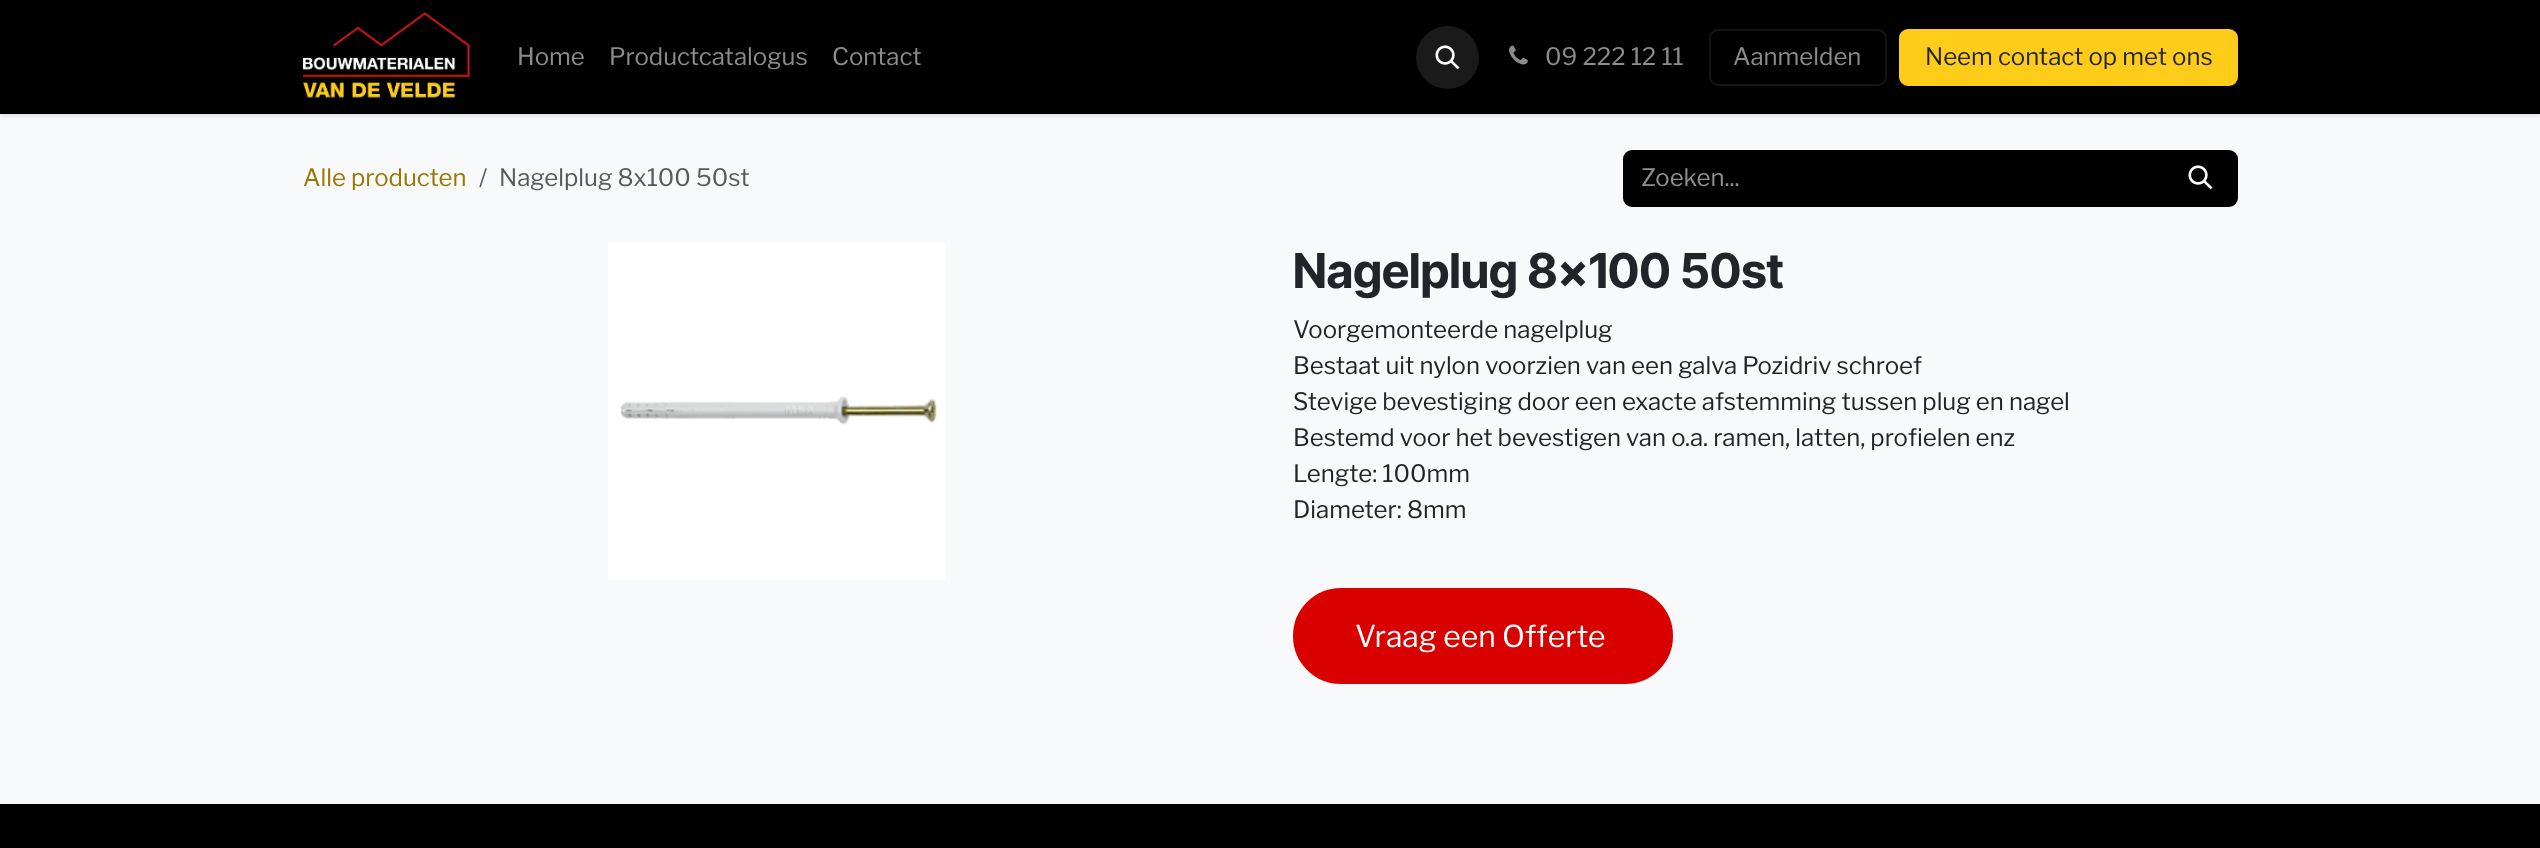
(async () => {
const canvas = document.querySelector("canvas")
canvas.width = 2540
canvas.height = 848
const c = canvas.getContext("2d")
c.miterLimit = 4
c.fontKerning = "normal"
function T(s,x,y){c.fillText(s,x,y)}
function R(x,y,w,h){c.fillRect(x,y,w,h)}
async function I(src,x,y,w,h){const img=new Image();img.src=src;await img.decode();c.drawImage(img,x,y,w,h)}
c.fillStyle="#f8f9fa"
R(0,0,2540,848)
c.fillStyle="#0000001a"
c.filter="blur(2px)"
c.beginPath()
c.rect(0,2,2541,114)
c.fill()
c.filter="none"
c.fillStyle="#000"
R(0,0,2540,114)
await I("1.png",303,12,167,86)
c.font="24px Libre Franklin"
c.fillStyle="#8c8c8c"
T("Home",517,65)
T("Productcatalogus",609,65)
T("Contact",832,65)
c.fillStyle="#1a1a1a"
c.beginPath()
c.arc(1447.5,57.5,31.5,0,7)
c.fill()
await I("2.png",1435,45,25,25)
await I("3.png",1509,45,19,20)
c.fillStyle="#8c8c8c"
T("09 222 12 11",1545,65)
c.beginPath()
c.roundRect(1710,30,176,55,8)
c.strokeStyle="#151515"
c.lineWidth=2
c.stroke()
T("Aanmelden",1733,65)
c.fillStyle="#ffcc19"
c.beginPath()
c.roundRect(1900,30,337,55,8)
c.fill()
c.strokeStyle="#ffcc19"
c.stroke()
c.fillStyle="#212529"
T("Neem contact op met ons",1925,65)
c.fillStyle="#970"
T("Alle producten",303,186)
c.fillStyle="#575a5d"
T("/",479,186)
T("Nagelplug 8x100 50st",499,186)
c.fillStyle="#000"
c.beginPath()
c.roundRect(1623,150,542,57,[9,0,0,9])
c.fill()
c.fillStyle="#8d8f92"
T("Zoeken...",1641,186)
c.fillStyle="#000"
c.beginPath()
c.roundRect(2164,151,73,55,[0,8,8,0])
c.fill()
c.strokeStyle="#000"
c.stroke()
await I("4.png",2188,165,25,25)
await I("5.png",608,243,337,337)
c.font="bold 48px Inter Tight"
c.fillStyle="#212529"
T("Nagelplug 8x100 50st",1293,288)
c.font="24px Libre Franklin"
T("Voorgemonteerde nagelplug",1293,338)
T("Bestaat uit nylon voorzien van een galva Pozidriv schroef",1293,374)
T("Stevige bevestiging door een exacte afstemming tussen plug en nagel",1293,410)
T("Bestemd voor het bevestigen van o.a. ramen, latten, profielen enz",1293,446)
T("Lengte: 100mm",1293,482)
T("Diameter: 8mm",1293,518)
c.fillStyle="#d90000"
c.beginPath()
c.roundRect(1294,589,378,94,47)
c.fill()
c.strokeStyle="#d90000"
c.stroke()
c.font="30px Libre Franklin"
c.fillStyle="#fff"
T("Vraag een Offerte",1355,647)
c.fillStyle="#000"
R(0,804,2540,44)
})()
